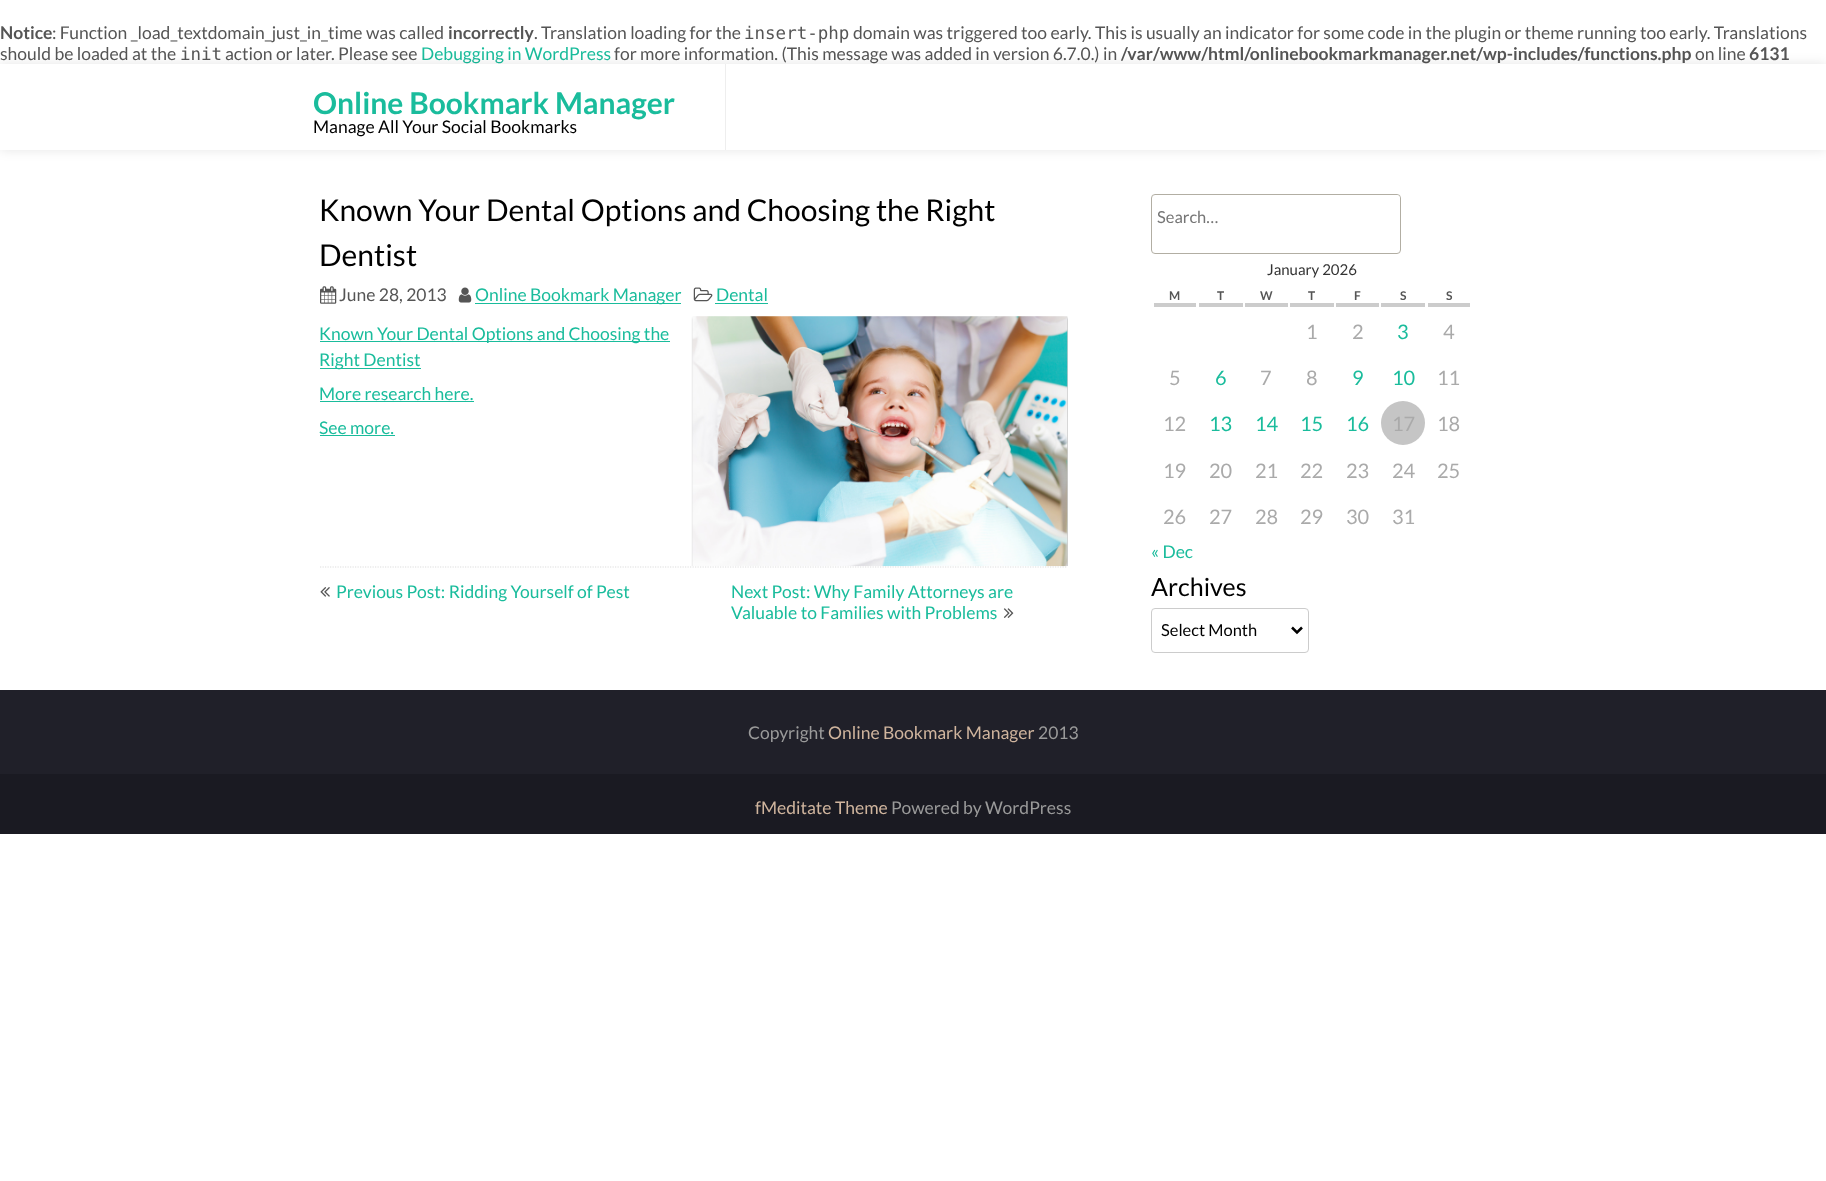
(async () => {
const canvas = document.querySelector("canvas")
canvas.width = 1826
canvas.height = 1181
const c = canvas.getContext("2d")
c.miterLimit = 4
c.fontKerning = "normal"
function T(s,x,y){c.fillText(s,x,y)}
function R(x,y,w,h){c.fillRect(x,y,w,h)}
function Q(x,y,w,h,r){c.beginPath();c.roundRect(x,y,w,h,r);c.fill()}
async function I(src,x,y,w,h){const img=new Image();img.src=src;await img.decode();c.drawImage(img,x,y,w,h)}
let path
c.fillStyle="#fff"
R(0,0,1826,1181)
c.font="bold 17.5px Lato"
c.fillStyle="#555"
T("Notice",0,39)
c.font="17.5px Lato"
T(": Function _load_textdomain_just_in_time was called",52,39)
c.font="bold 17.5px Lato"
T("incorrectly",448,39)
c.font="17.5px Lato"
T(". Translation loading for the",534,39)
c.font="17.5px DejaVu Sans Mono"
T("insert-php",744,39)
c.font="17.5px Lato"
T("domain was triggered too early. This is usually an indicator for some code in the plugin or theme running too early. Translations",853,39)
T("should be loaded at the",0,60)
c.font="17.5px DejaVu Sans Mono"
T("init",180,60)
c.font="17.5px Lato"
T("action or later. Please see",225,60)
c.fillStyle="#1abc9c"
T("Debugging in WordPress",421,60)
c.fillStyle="#555"
T("for more information. (This message was added in version 6.7.0.) in",614,60)
c.font="bold 17.5px Lato"
T("/var/www/html/onlinebookmarkmanager.net/wp-includes/functions.php",1121,60)
c.font="17.5px Lato"
T("on line",1695,60)
c.font="bold 17.5px Lato"
T("6131",1749,60)
c.save()
path = new Path2D("M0 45h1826v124h-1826zm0 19h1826v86h-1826z")
c.clip(path,"evenodd")
c.fillStyle="#0000001a"
c.filter="blur(6px)"
c.beginPath()
c.rect(0,64,1826,86)
c.fill()
c.filter="none"
c.restore()
c.fillStyle="#eee"
R(725,64,1,86)
c.font="bold 30px Lato"
c.fillStyle="#1abc9c"
T("Online Bookmark Manager",313,114)
c.font="17.5px Lato"
c.fillStyle="#000"
T("Manage All Your Social Bookmarks",313,133)
c.font="30px Lato"
T("Known Your Dental Options and Choosing the Right",319,221)
T("Dentist",319,266)
await I("1.png",320,286,17,18)
c.font="17.5px Lato"
c.fillStyle="#555"
T("June 28, 2013",339,301)
await I("2.png",458,287,14,16)
c.fillStyle="#1abc9c"
R(475,303,206,1)
T("Online Bookmark Manager",475,301)
await I("3.png",693,287,20,15)
T("Dental",716,301)
R(715,303,53,1)
R(320,341,350,1)
T("Known Your Dental Options and Choosing the",319,340)
R(320,368,101,1)
T("Right Dentist",319,366)
path = new Path2D("M320 567h747.5")
c.strokeStyle="#ddd"
c.lineWidth=1.2
c.setLineDash([1.25,1.25])
c.stroke(path)
c.save()
c.beginPath()
c.rect(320,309,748,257)
c.clip()
c.fillStyle="#0000004d"
c.filter="blur(1px)"
c.beginPath()
c.rect(693,318,375,250)
c.fill()
c.filter="none"
c.restore()
await I("4.png",692,316,376,251)
T("More research here.",319,400)
R(320,401,154,1)
T("See more.",319,434)
R(320,435,75,1)
await I("5.png",320,587,10,10)
T("Previous Post: Ridding Yourself of Pest",336,598)
T("Next Post: Why Family Attorneys are",731,598)
T("Valuable to Families with Problems",731,619)
await I("6.png",1003,608,11,10)
c.beginPath()
c.roundRect(1151.5,194.5,249,59,3.5)
c.strokeStyle="#b2aea3"
c.lineWidth=1
c.setLineDash([])
c.stroke()
c.font="16.5px Lato"
c.fillStyle="#757575"
T("Search…",1157,223)
c.fillStyle="#fff"
Q(1351,195,49,40,4)
c.font="15px Lato"
c.fillStyle="#333"
T("January 2026",1267,275)
c.fillStyle="#ccc"
R(1154,303,42,4)
c.font="bold 12px Lato"
c.fillStyle="#555"
T("M",1169,300)
c.fillStyle="#ccc"
R(1199,303,44,4)
c.fillStyle="#555"
T("T",1217,300)
c.fillStyle="#ccc"
R(1245,303,43,4)
c.fillStyle="#555"
T("W",1260,300)
c.fillStyle="#ccc"
R(1290,303,44,4)
c.fillStyle="#555"
T("T",1308,300)
c.fillStyle="#ccc"
R(1336,303,43,4)
c.fillStyle="#555"
T("F",1354,300)
c.fillStyle="#ccc"
R(1381,303,44,4)
c.fillStyle="#555"
T("S",1400,300)
c.fillStyle="#ccc"
R(1428,303,42,4)
c.fillStyle="#555"
T("S",1446,300)
c.font="20px Lato"
c.fillStyle="#aaa"
T("1",1306,339)
T("2",1352,339)
c.fillStyle="#1abc9c"
T("3",1397,339)
c.fillStyle="#aaa"
T("4",1443,339)
T("5",1169,385)
c.fillStyle="#1abc9c"
T("6",1215,385)
c.fillStyle="#aaa"
T("7",1260,385)
T("8",1306,385)
c.fillStyle="#1abc9c"
T("9",1352,385)
T("10",1392,385)
c.fillStyle="#aaa"
T("11",1437,385)
T("12",1163,431)
c.fillStyle="#1abc9c"
T("13",1209,431)
T("14",1255,431)
T("15",1300,431)
T("16",1346,431)
c.fillStyle="#c5c5c5"
c.beginPath()
c.arc(1403,423,22,0,7)
c.fill()
c.fillStyle="#aaa"
T("17",1392,431)
T("18",1437,431)
T("19",1163,478)
T("20",1209,478)
T("21",1255,478)
T("22",1300,478)
T("23",1346,478)
T("24",1392,478)
T("25",1437,478)
T("26",1163,524)
T("27",1209,524)
T("28",1255,524)
T("29",1300,524)
T("30",1346,524)
T("31",1392,524)
c.font="17.5px Lato"
c.fillStyle="#1abc9c"
T("« Dec",1151,558)
c.font="25px Lato"
c.fillStyle="#000"
T("Archives",1151,596)
c.beginPath()
c.roundRect(1151.5,608.5,157,44,3.5)
c.strokeStyle="#ccc"
c.stroke()
path = new Path2D("M1292 627.5l5 5l5-5")
c.strokeStyle="#000"
c.lineWidth=2.5
c.stroke(path)
c.font="16.5px Lato"
T("Select Month",1161,636)
c.fillStyle="#202029"
R(0,690,1826,84)
c.font="17.5px Lato"
c.fillStyle="#9a9a9a"
T("Copyright",748,739)
c.fillStyle="#d0b59e"
T("Online Bookmark Manager",828,739)
c.fillStyle="#9a9a9a"
T("2013",1038,739)
c.fillStyle="#1a1a22"
R(0,774,1826,60)
c.fillStyle="#d0b59e"
T("fMeditate Theme",755,814)
c.fillStyle="#9a9a9a"
T("Powered by WordPress",891,814)
})()
